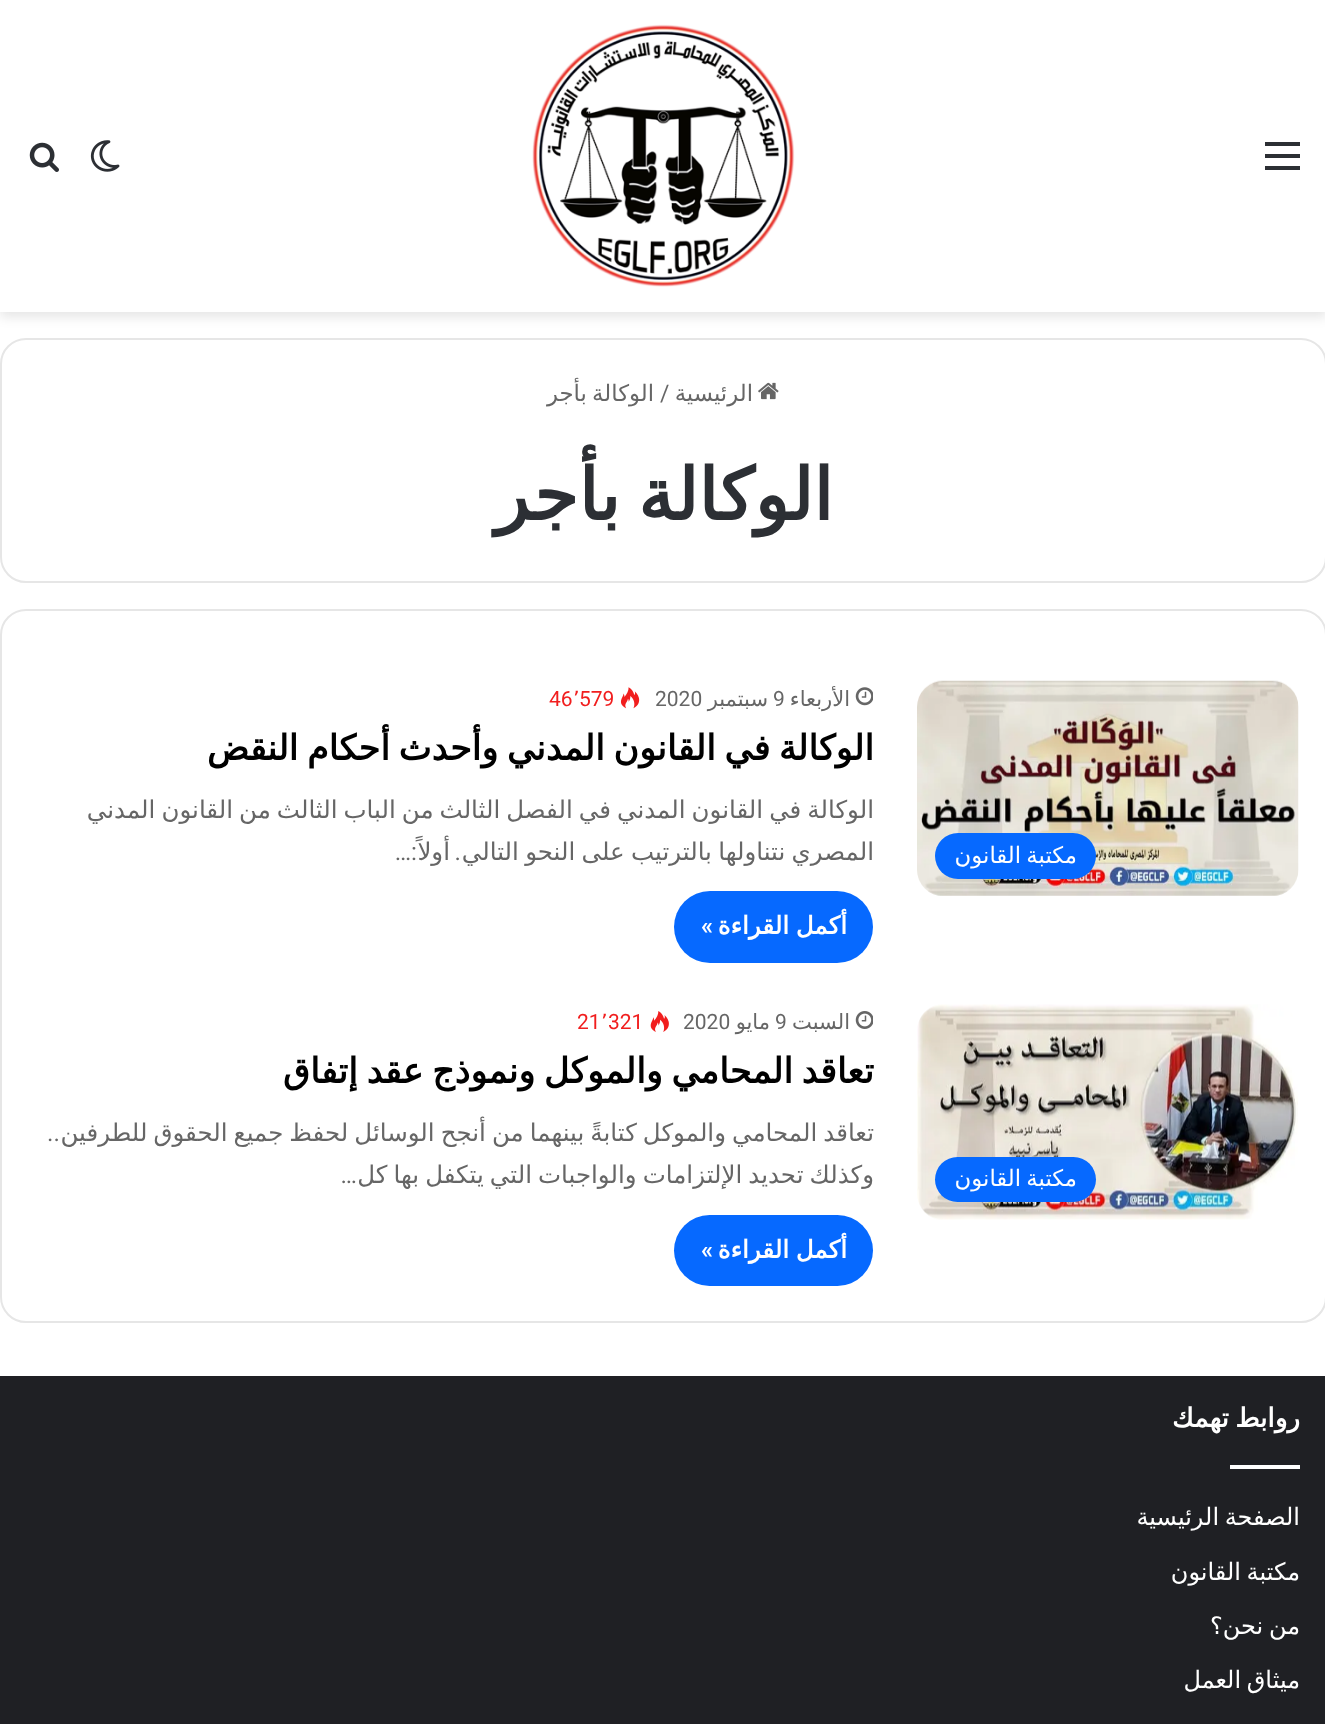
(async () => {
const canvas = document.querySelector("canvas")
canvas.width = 1325
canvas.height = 1724
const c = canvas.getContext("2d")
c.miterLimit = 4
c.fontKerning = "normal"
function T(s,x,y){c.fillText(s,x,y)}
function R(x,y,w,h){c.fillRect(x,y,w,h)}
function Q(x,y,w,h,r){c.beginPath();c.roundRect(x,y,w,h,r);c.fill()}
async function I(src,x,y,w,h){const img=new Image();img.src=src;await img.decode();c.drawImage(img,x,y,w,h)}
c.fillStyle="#fff"
R(0,0,1325,1724)
c.fillStyle="#0000001a"
c.filter="blur(6px)"
c.beginPath()
c.rect(0,5,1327,312)
c.fill()
c.filter="none"
c.fillStyle="#fff"
R(0,0,1325,312)
c.fillStyle="#2c2f34"
R(1265,154,35,4)
R(1265,142,35,4)
R(1265,166,35,4)
await I("1.png",532,24,263,263)
await I("2.png",90,140,30,32)
await I("3.png",29,142,30,30)
c.beginPath()
c.roundRect(1,339,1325,243,25)
c.strokeStyle="#e6e6e6"
c.lineWidth=2
c.stroke()
await I("4.png",758,382,21,18)
c.direction="rtl"
c.font="22.75px DejaVu Sans"
c.fillStyle="#666"
T("الرئيسية",753,401)
c.direction="ltr"
c.font="22.75px Roboto"
T("/",660,401)
c.wordSpacing="-2px"
c.direction="rtl"
c.font="22.75px DejaVu Sans"
T("الوكالة بأجر",654,401)
c.wordSpacing="-5px"
c.font="bold 71.75px DejaVu Sans"
c.fillStyle="#2c2f34"
T("الوكالة بأجر",833,520)
c.beginPath()
c.roundRect(1,610,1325,712,25)
c.stroke()
await I("5.png",917,680,382,216)
c.fillStyle="#0669ff"
Q(935,833,161,46,23)
c.wordSpacing="-2px"
c.font="22.75px DejaVu Sans"
c.fillStyle="#fff"
T("مكتبة القانون",1077,863)
await I("6.png",855,687,18,19)
c.wordSpacing="0px"
c.font="21px DejaVu Sans"
c.fillStyle="#666"
T("الأربعاء",850,706)
c.direction="ltr"
c.font="21px Roboto"
T("9",773,706)
c.direction="rtl"
c.font="21px DejaVu Sans"
T("سبتمبر",768,706)
c.direction="ltr"
c.font="21px Roboto"
T("2020",655,706)
await I("7.png",620,687,20,22)
c.fillStyle="#f11e1e"
T("579",579,706)
c.font="21px DejaVu Sans"
T("٬",573,706)
c.font="21px Roboto"
T("46",549,706)
c.wordSpacing="-2.5px"
c.direction="rtl"
c.font="bold 35px DejaVu Sans"
c.fillStyle="#000"
T("الوكالة في القانون المدني وأحدث أحكام النقض",874,760)
c.wordSpacing="-1.75px"
c.font="24.5px DejaVu Sans"
c.fillStyle="#666"
T("الوكالة في القانون المدني في الفصل الثالث من الباب الثالث من القانون المدني",874,818)
c.wordSpacing="-1.5px"
T("المصري نتناولها بالترتيب على النحو التالي",874,860)
c.wordSpacing="0px"
c.font="24.5px Roboto"
T(".",461,860)
T(":…",417,860)
c.font="24.5px DejaVu Sans"
T("أولاً",450,860)
c.fillStyle="#0669ff"
Q(674,891,199,72,36)
c.wordSpacing="-1px"
c.font="bold 24.5px DejaVu Sans"
c.fillStyle="#fff"
T("أكمل القراءة",847,934)
c.wordSpacing="0px"
c.font="600 24.5px Roboto"
T("»",713,934)
await I("8.png",917,1004,381,216)
c.fillStyle="#0669ff"
Q(935,1157,161,45,22.5)
c.wordSpacing="-2px"
c.font="22.75px DejaVu Sans"
c.fillStyle="#fff"
T("مكتبة القانون",1077,1186)
await I("9.png",855,1011,18,18)
c.wordSpacing="0px"
c.font="21px DejaVu Sans"
c.fillStyle="#666"
T("السبت",850,1029)
c.direction="ltr"
c.font="21px Roboto"
T("9",775,1029)
c.direction="rtl"
c.font="21px DejaVu Sans"
T("مايو",770,1029)
c.direction="ltr"
c.font="21px Roboto"
T("2020",683,1029)
await I("10.png",650,1011,19,21)
c.fillStyle="#f11e1e"
T("321",608,1029)
c.font="21px DejaVu Sans"
T("٬",601,1029)
c.font="21px Roboto"
T("21",577,1029)
c.wordSpacing="-2.5px"
c.direction="rtl"
c.font="bold 35px DejaVu Sans"
c.fillStyle="#000"
T("تعاقد المحامي والموكل ونموذج عقد إتفاق",874,1083)
c.wordSpacing="-1.75px"
c.font="24.5px DejaVu Sans"
c.fillStyle="#666"
T("تعاقد المحامي والموكل كتابةً بينهما من أنجح الوسائل لحفظ جميع الحقوق للطرفين",874,1141)
c.wordSpacing="0px"
c.font="24.5px Roboto"
T("..",60,1141)
c.wordSpacing="-1.75px"
c.font="24.5px DejaVu Sans"
T("وكذلك تحديد الإلتزامات والواجبات التي يتكفل بها كل",874,1183)
c.wordSpacing="0px"
c.font="24.5px Roboto"
T("…",357,1183)
c.fillStyle="#0669ff"
Q(674,1215,199,71,35.5)
c.wordSpacing="-1px"
c.font="bold 24.5px DejaVu Sans"
c.fillStyle="#fff"
T("أكمل القراءة",847,1258)
c.wordSpacing="0px"
c.font="600 24.5px Roboto"
T("»",713,1258)
c.fillStyle="#1f2024"
R(0,1376,1325,348)
c.wordSpacing="-2px"
c.font="bold 26.25px DejaVu Sans"
c.fillStyle="#fff"
T("روابط تهمك",1300,1427)
R(1230,1465,70,4)
c.font="24px DejaVu Sans"
T("الصفحة الرئيسية",1300,1525)
T("مكتبة القانون",1300,1580)
T("من نحن؟",1300,1634)
T("ميثاق العمل",1300,1688)
})()
